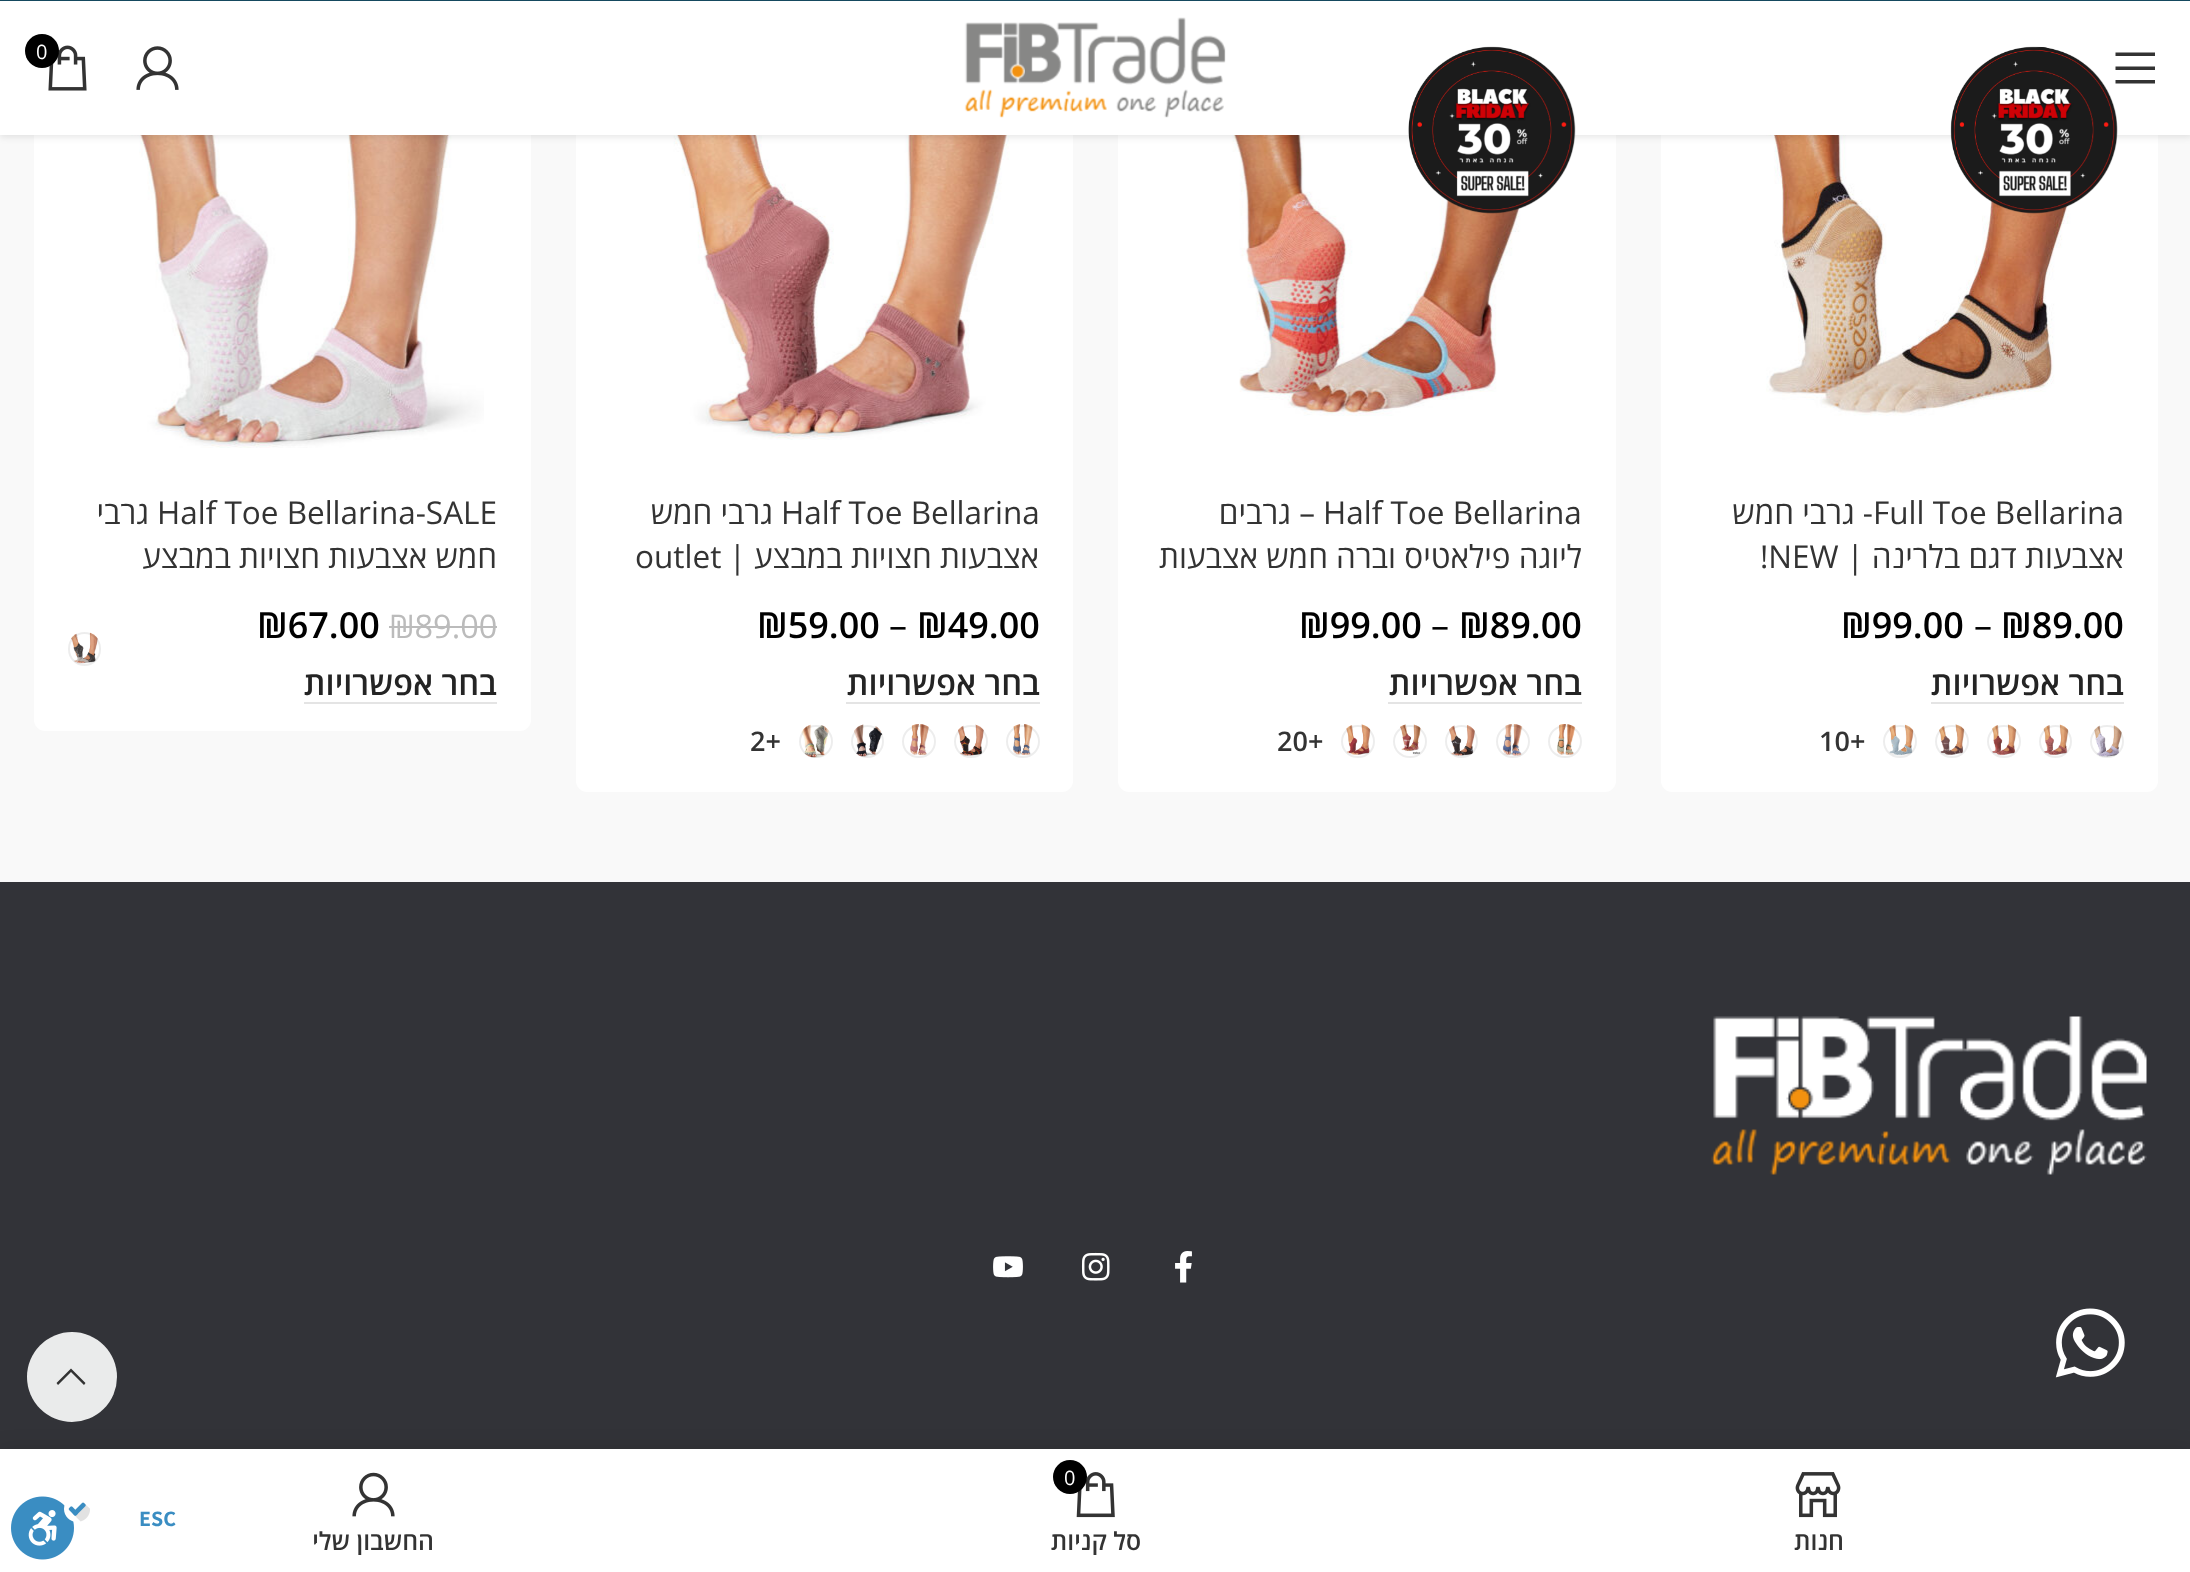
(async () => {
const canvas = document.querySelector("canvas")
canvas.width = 2190
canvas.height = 1572
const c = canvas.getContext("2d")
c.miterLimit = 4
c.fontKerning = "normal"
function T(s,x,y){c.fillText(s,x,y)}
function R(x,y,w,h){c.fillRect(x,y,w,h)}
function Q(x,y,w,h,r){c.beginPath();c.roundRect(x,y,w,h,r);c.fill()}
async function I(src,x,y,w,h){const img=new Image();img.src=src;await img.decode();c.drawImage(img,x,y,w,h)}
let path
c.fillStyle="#f9f9f9"
R(0,0,2190,1572)
c.fillStyle="#fff"
Q(1661,7,497,785,11)
await I("6.png",1740,135,362,281)
Q(1118,7,498,785,11)
await I("13.png",1200,135,352,281)
Q(576,7,497,785,11)
await I("19.png",626,135,399,305)
Q(34,7,497,724,11)
await I("25.png",105,135,379,313)
c.fillStyle="#0000001a"
c.filter="blur(3.5px)"
c.beginPath()
c.rect(0,2,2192,135)
c.fill()
c.filter="none"
c.fillStyle="#fff"
R(0,1,2190,134)
await I("1.png",2036,47,14,2)
c.fillStyle="#333"
path = new Path2D("M2115.5 56h39.5v-3.5h-39.5zm0 14h39.5v-3.5h-39.5zm0 13.5h39.5v-3.5h-39.5z")
c.fill(path)
await I("2.png",964,17,262,101)
await I("3.png",136,46,43,44)
await I("4.png",48,45,39,46)
c.fillStyle="#000"
c.beginPath()
c.arc(42,51,17,0,7)
c.fill()
c.font="20px Open Sans"
c.fillStyle="#fff"
T("0",36,59)
await I("5.png",1950,46,168,168)
c.font="31.5px Open Sans"
c.fillStyle="#333"
T("Full Toe Bellarina",1873,524)
c.direction="rtl"
T("- גרבי חמש",1873,524)
T("אצבעות דגם בלרינה |",2124,568)
c.direction="ltr"
T("!NEW",1760,568)
c.font="600 36px Open Sans"
c.fillStyle="#000"
T("₪89.00",2001,638)
c.font="36px Open Sans"
T("–",1974,638)
c.font="600 36px Open Sans"
T("₪99.00",1841,638)
c.fillStyle="#e4e4e4"
R(1931,702,193,2)
c.direction="rtl"
c.font="600 32.5px Open Sans"
c.fillStyle="#242424"
T("בחר אפשרויות",2124,695)
await I("7.png",2094,725,28,32)
c.beginPath()
c.roundRect(2091,726,32,31,15.5)
c.strokeStyle="#00000012"
c.lineWidth=2
c.stroke()
await I("8.png",2043,724,26,32)
c.beginPath()
c.arc(2055.5,741.5,15.5,0,7)
c.stroke()
await I("9.png",1992,724,25,32)
c.beginPath()
c.roundRect(1988,726,32,31,15.5)
c.stroke()
await I("10.png",1939,724,26,32)
c.beginPath()
c.roundRect(1936,726,32,31,15.5)
c.stroke()
await I("11.png",1889,724,25,32)
c.beginPath()
c.roundRect(1884,726,32,31,15.5)
c.stroke()
c.direction="ltr"
c.font="600 27px Open Sans"
c.fillStyle="#333"
T("10+",1819,751)
await I("12.png",1408,46,168,168)
c.font="31.5px Open Sans"
T("Half Toe Bellarina",1323,524)
c.direction="rtl"
T("– גרבים",1315,524)
T("ליוגה פילאטיס וברה חמש אצבעות",1582,568)
c.direction="ltr"
c.font="600 36px Open Sans"
c.fillStyle="#000"
T("₪89.00",1459,638)
c.font="36px Open Sans"
T("–",1431,638)
c.font="600 36px Open Sans"
T("₪99.00",1299,638)
c.fillStyle="#e4e4e4"
R(1388,702,194,2)
c.direction="rtl"
c.font="600 32.5px Open Sans"
c.fillStyle="#242424"
T("בחר אפשרויות",1582,695)
await I("14.png",1557,724,19,31)
c.beginPath()
c.roundRect(1549,726,32,31,15.5)
c.stroke()
await I("15.png",1502,724,21,32)
c.beginPath()
c.roundRect(1497,726,32,31,15.5)
c.stroke()
await I("16.png",1449,725,26,31)
c.beginPath()
c.arc(1461.5,741.5,15.5,0,7)
c.stroke()
await I("17.png",1400,724,21,31)
c.beginPath()
c.roundRect(1394,726,32,31,15.5)
c.stroke()
await I("18.png",1346,724,25,31)
c.beginPath()
c.roundRect(1342,726,32,31,15.5)
c.stroke()
c.direction="ltr"
c.font="600 27px Open Sans"
c.fillStyle="#333"
T("20+",1277,751)
c.font="31.5px Open Sans"
T("Half Toe Bellarina",781,524)
c.direction="rtl"
T("גרבי חמש",773,524)
T("אצבעות חצויות במבצע |",1039,568)
c.direction="ltr"
T("outlet",635,568)
c.font="600 36px Open Sans"
c.fillStyle="#000"
T("₪49.00",917,638)
c.font="36px Open Sans"
T("–",889,638)
c.font="600 36px Open Sans"
T("₪59.00",757,638)
c.fillStyle="#e4e4e4"
R(846,702,194,2)
c.direction="rtl"
c.font="600 32.5px Open Sans"
c.fillStyle="#242424"
T("בחר אפשרויות",1040,695)
await I("20.png",1013,724,20,32)
c.beginPath()
c.roundRect(1007,726,32,31,15.5)
c.stroke()
await I("21.png",958,724,26,32)
c.beginPath()
c.roundRect(955,726,32,31,15.5)
c.stroke()
await I("22.png",910,724,19,32)
c.beginPath()
c.roundRect(903,726,32,31,15.5)
c.stroke()
await I("23.png",854,724,29,33)
c.beginPath()
c.arc(867.5,741.5,15.5,0,7)
c.stroke()
await I("24.png",801,724,28,34)
c.beginPath()
c.roundRect(800,726,32,31,15.5)
c.stroke()
c.direction="ltr"
c.font="600 27px Open Sans"
c.fillStyle="#333"
T("2+",750,751)
c.font="31.5px Open Sans"
T("Half Toe Bellarina-SALE",157,524)
c.direction="rtl"
T("גרבי",149,524)
T("חמש אצבעות חצויות במבצע",497,568)
c.direction="ltr"
c.font="32.5px Open Sans"
c.fillStyle="#bbb"
T("₪89.00",389,638)
R(389,626,108,2)
c.font="600 36px Open Sans"
c.fillStyle="#000"
T("₪67.00",257,638)
c.fillStyle="#e4e4e4"
R(304,702,193,2)
c.direction="rtl"
c.font="600 32.5px Open Sans"
c.fillStyle="#242424"
T("בחר אפשרויות",497,695)
await I("26.png",71,632,27,32)
c.beginPath()
c.roundRect(69,633,31,32,15.5)
c.stroke()
c.fillStyle="#323338"
R(0,882,2190,567)
await I("27.png",1711,1016,436,159)
await I("28.png",1175,1251,17,32)
await I("29.png",1081,1252,29,29)
await I("30.png",993,1256,30,22)
await I("31.png",2055,1308,70,70)
c.fillStyle="#eaebeb"
c.beginPath()
c.arc(72,1377,45,0,7)
c.fill()
c.fillStyle="#333"
path = new Path2D("M84 1385l1.5-2l-14.5-14.5l-14.5 14.5l1.5 2l13-13z")
c.fill(path)
c.fillStyle="#0000001f"
c.filter="blur(10px)"
c.beginPath()
c.rect(0,1449,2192,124)
c.fill()
c.filter="none"
c.fillStyle="#fff"
R(0,1449,2190,123)
await I("32.png",1795,1472,46,46)
c.font="600 24.75px Open Sans"
c.fillStyle="#333"
T("חנות",1844,1550)
await I("33.png",1076,1472,39,46)
c.fillStyle="#000"
c.beginPath()
c.arc(1070,1477,17,0,7)
c.fill()
c.direction="ltr"
c.font="20px Open Sans"
c.fillStyle="#fff"
T("0",1064,1485)
c.save()
c.beginPath()
c.rect(756,1526,680,29)
c.clip()
c.direction="rtl"
c.font="600 24.75px Open Sans"
c.fillStyle="#333"
T("סל קניות",1141,1550)
c.restore()
await I("34.png",352,1472,43,45)
c.save()
c.beginPath()
c.rect(34,1526,677,29)
c.clip()
c.direction="rtl"
c.font="600 24.75px Open Sans"
c.fillStyle="#333"
T("החשבון שלי",434,1550)
c.restore()
c.fillStyle="#15495f"
R(0,0,2190,1)
c.font="bold 22px Assistant"
c.fillStyle="#3a8dc2"
T("ESC",139,1526)
await I("35.png",11,1496,79,64)
})()
